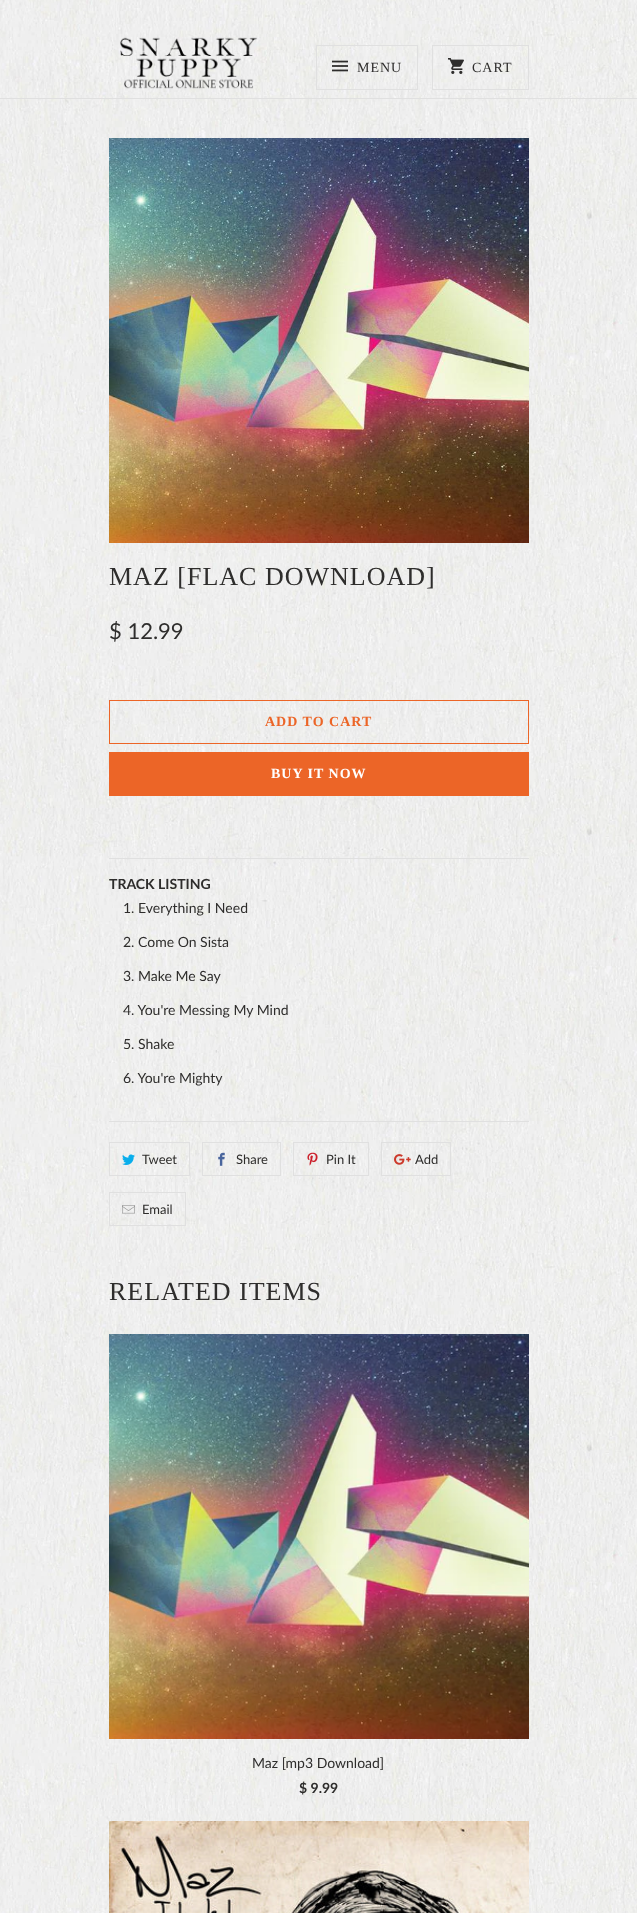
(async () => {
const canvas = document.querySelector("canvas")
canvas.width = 637
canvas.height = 1913
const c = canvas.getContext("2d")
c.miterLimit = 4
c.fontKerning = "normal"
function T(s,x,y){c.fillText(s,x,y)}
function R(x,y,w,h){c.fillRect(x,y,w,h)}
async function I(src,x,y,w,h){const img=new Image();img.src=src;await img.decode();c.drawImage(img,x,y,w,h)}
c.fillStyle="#fff"
R(0,0,637,1913)
await I("1.png",0,0,637,1913)
c.fillStyle="#e0e0e0"
R(0,98,637,1)
await I("2.png",120,37,137,52)
c.strokeStyle="#e0e0e0"
c.strokeRect(316.5,45.5,101,44)
await I("3.png",332,60,16,12)
c.letterSpacing="1px"
c.font="14px Liberation Serif"
c.fillStyle="#2e2d2c"
T("MENU",357,72)
c.strokeRect(432.5,45.5,96,44)
await I("4.png",448,58,16,16)
T("CART",472,72)
await I("5.png",109,138,420,405)
c.font="26px Liberation Serif"
T("MAZ [FLAC DOWNLOAD]",109,585)
c.letterSpacing="0px"
c.font="22px Lato"
T("$ 12.99",109,639)
c.strokeStyle="#ec6527"
c.strokeRect(109.5,700.5,419,43)
c.letterSpacing="1px"
c.font="bold 14px Liberation Serif"
c.fillStyle="#ec6527"
T("ADD TO CART",265,726)
R(109,752,420,44)
c.fillStyle="#fff"
T("BUY IT NOW",271,778)
c.fillStyle="#e0e0e0"
R(109,858,420,1)
c.letterSpacing="0px"
c.font="bold 14px Lato"
c.fillStyle="#2e2d2c"
T("TRACK LISTING",109,889)
c.font="14px Lato"
T("1. Everything I Need",123,913)
T("2. Come On Sista",123,947)
T("3. Make Me Say",123,981)
T("4. You're Messing My Mind",123,1015)
T("5. Shake",123,1049)
T("6. You're Mighty",123,1083)
c.fillStyle="#e0e0e0"
R(109,1121,420,1)
c.strokeStyle="#e0e0e0"
c.strokeRect(109.5,1142.5,80,33)
await I("6.png",122,1154,13,11)
c.font="13px Lato"
c.fillStyle="#2e2d2c"
T("Tweet",142,1164)
c.strokeRect(202.5,1142.5,78,33)
await I("7.png",218,1152,7,14)
T("Share",236,1164)
c.strokeRect(293.5,1142.5,75,33)
await I("8.png",307,1152,11,14)
T("Pin It",326,1164)
c.strokeRect(381.5,1142.5,69,33)
await I("9.png",394,1154,17,11)
T("Add",415,1164)
c.strokeRect(109.5,1192.5,76,33)
await I("10.png",122,1205,13,9)
T("Email",142,1214)
c.letterSpacing="1px"
c.font="26px Liberation Serif"
T("RELATED ITEMS",109,1300)
await I("11.png",109,1334,420,405)
c.letterSpacing="0px"
c.font="14px Lato"
T("Maz [mp3 Download]",252,1768)
c.font="bold 14px Lato"
T("$ 9.99",299,1793)
await I("12.png",109,1821,420,92)
})()
